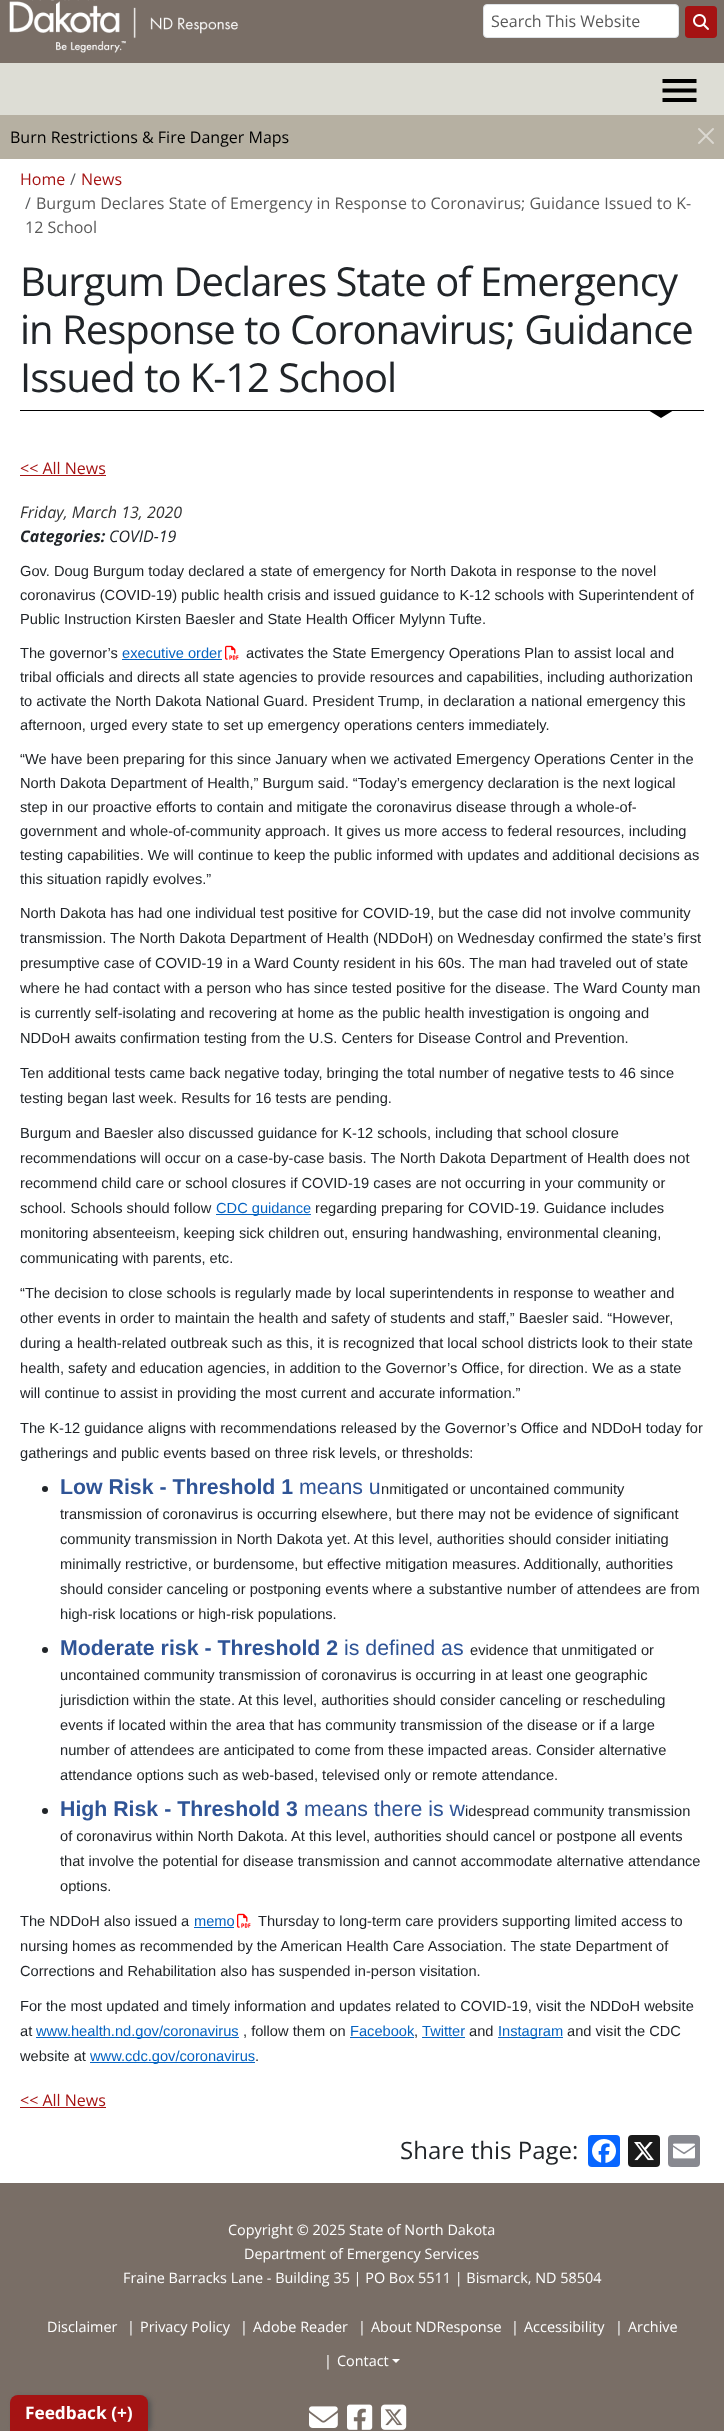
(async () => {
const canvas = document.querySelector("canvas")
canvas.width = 724
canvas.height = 2431
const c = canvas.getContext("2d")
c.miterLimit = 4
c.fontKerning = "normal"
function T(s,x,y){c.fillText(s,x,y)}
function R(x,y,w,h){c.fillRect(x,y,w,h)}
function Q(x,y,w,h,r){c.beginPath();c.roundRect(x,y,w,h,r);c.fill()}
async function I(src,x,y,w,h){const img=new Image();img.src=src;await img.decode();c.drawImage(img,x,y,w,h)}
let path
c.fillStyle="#fff"
R(0,0,724,2431)
c.fillStyle="#796e66"
R(0,0,724,63)
await I("1.png",9,0,230,53)
c.fillStyle="#fff"
c.beginPath()
c.roundRect(483.5,4.5,195,33,3.5)
c.fill()
c.strokeStyle="#dee2e6"
c.stroke()
c.font="16px Open Sans"
c.fillStyle="#595959"
T("Search This Website",491,27)
c.fillStyle="#a51313"
Q(685,6,32,32,4)
await I("2.png",693,14,16,16)
c.fillStyle="#ddddd5"
R(0,63,724,52)
c.fillStyle="#000"
path = new Path2D("M662.5 102h34v-4h-34zm0-9.5h34v-4h-34zm0-13.5v4h34v-4z")
c.fill(path)
c.fillStyle="#b6b0a2"
R(0,115,724,44)
c.fillStyle="#000"
T("Burn Restrictions & Fire Danger Maps",10,143)
await I("3.png",698,128,16,16)
c.fillStyle="#a51313"
T("Home",20,185)
c.fillStyle="#595c5f"
T("/",70,185)
c.fillStyle="#a51313"
T("News",81,185)
c.fillStyle="#595c5f"
T("/",25,209)
c.fillStyle="#595959"
T("Burgum Declares State of Emergency in Response to Coronavirus; Guidance Issued to K-",36,209)
T("12 School",25,233)
c.fillStyle="#000"
R(20,410,684,1)
c.letterSpacing="-1px"
c.font="40px Open Sans"
c.fillStyle="#212529"
T("Burgum Declares State of Emergency",20,296)
T("in Response to Coronavirus; Guidance",20,344)
T("Issued to K-12 School",20,392)
c.fillStyle="#000"
path = new Path2D("M648 410h26l-13 8z")
c.fill(path)
c.letterSpacing="0px"
c.font="16px Open Sans"
c.fillStyle="#a51313"
T("<< All News",20,474)
R(20,475,86,1)
c.font="italic 16px Open Sans"
c.fillStyle="#333"
T("Friday, March 13, 2020",20,518)
c.font="italic bold 16px Open Sans"
c.fillStyle="#212529"
T("Categories:",20,542)
c.font="italic 16px Open Sans"
T("COVID-19",109,542)
c.font="14.65px Liberation Sans"
T("Gov. Doug Burgum today declared a state of emergency for North Dakota in response to the novel",20,576)
T("coronavirus (COVID-19) public health crisis and issued guidance to K-12 schools with Superintendent of",20,600)
T("Public Instruction Kirsten Baesler and State Health Officer Mylynn Tufte.",20,624)
T("The governor’s",20,658)
c.fillStyle="#0563c1"
T("executive order",122,658)
R(122,659,100,1)
await I("4.png",225,645,14,15)
c.fillStyle="#212529"
T("activates the State Emergency Operations Plan to assist local and",246,658)
T("tribal officials and directs all state agencies to provide resources and capabilities, including authorization",20,682)
T("to activate the North Dakota National Guard. President Trump, in declaration a national emergency this",20,706)
T("afternoon, urged every state to set up emergency operations centers immediately.",20,730)
T("“We have been preparing for this since January when we activated Emergency Operations Center in the",20,764)
T("North Dakota Department of Health,” Burgum said. “Today’s emergency declaration is the next logical",20,788)
T("step in our proactive efforts to contain and mitigate the coronavirus disease through a whole-of-",20,812)
T("government and whole-of-community approach. It gives us more access to federal resources, including",20,836)
T("testing capabilities. We will continue to keep the public informed with updates and additional decisions as",20,860)
T("this situation rapidly evolves.”",20,884)
T("North Dakota has had one individual test positive for COVID-19, but the case did not involve community",20,918)
T("transmission. The North Dakota Department of Health (NDDoH) on Wednesday confirmed the state’s first",20,943)
T("presumptive case of COVID-19 in a Ward County resident in his 60s. The man had traveled out of state",20,968)
T("where he had contact with a person who has since tested positive for the disease. The Ward County man",20,993)
T("is currently self-isolating and recovering at home as the public health investigation is ongoing and",20,1018)
T("NDDoH awaits confirmation testing from the U.S. Centers for Disease Control and Prevention.",20,1043)
T("Ten additional tests came back negative today, bringing the total number of negative tests to 46 since",20,1078)
T("testing began last week. Results for 16 tests are pending.",20,1103)
T("Burgum and Baesler also discussed guidance for K-12 schools, including that school closure",20,1138)
T("recommendations will occur on a case-by-case basis. The North Dakota Department of Health does not",20,1163)
T("recommend child care or school closures if COVID-19 cases are not occurring in your community or",20,1188)
T("school. Schools should follow",20,1213)
c.fillStyle="#0563c1"
R(216,1214,95,1)
T("CDC guidance",216,1213)
c.fillStyle="#212529"
T("regarding preparing for COVID-19. Guidance includes",315,1213)
T("monitoring absenteeism, keeping sick children out, ensuring handwashing, environmental cleaning,",20,1238)
T("communicating with parents, etc.",20,1263)
T("“The decision to close schools is regularly made by local superintendents in response to weather and",20,1298)
T("other events in order to maintain the health and safety of students and staff,” Baesler said. “However,",20,1323)
T("during a health-related outbreak such as this, it is recognized that local school districts look to their state",20,1348)
T("health, safety and education agencies, in addition to the Governor’s Office, for direction. We as a state",20,1373)
T("will continue to assist in providing the most current and accurate information.”",20,1398)
T("The K-12 guidance aligns with recommendations released by the Governor’s Office and NDDoH today for",20,1433)
T("gatherings and public events based on three risk levels, or thresholds:",20,1458)
c.beginPath()
c.arc(45,1489,3,0,7)
c.fill()
c.font="bold 21.3px Liberation Sans"
c.fillStyle="#2f5496"
T("Low Risk - Threshold 1",60,1494)
c.font="21.3px Liberation Sans"
T("means u",299,1494)
c.font="14.65px Liberation Sans"
c.fillStyle="#212529"
T("nmitigated or uncontained community",381,1494)
T("transmission of coronavirus is occurring elsewhere, but there may not be evidence of significant",60,1519)
T("community transmission in North Dakota yet. At this level, authorities should consider initiating",60,1544)
T("minimally restrictive, or burdensome, but effective mitigation measures. Additionally, authorities",60,1569)
T("should consider canceling or postponing events where a substantive number of attendees are from",60,1594)
T("high-risk locations or high-risk populations.",60,1619)
c.beginPath()
c.arc(45,1650,3,0,7)
c.fill()
c.font="bold 21.3px Liberation Sans"
c.fillStyle="#2f5496"
T("Moderate risk - Threshold 2",60,1655)
c.font="21.3px Liberation Sans"
T("is defined as",344,1655)
c.font="14.65px Liberation Sans"
c.fillStyle="#212529"
T("evidence that unmitigated or",470,1655)
T("uncontained community transmission of coronavirus is occurring in at least one geographic",60,1680)
T("jurisdiction within the state. At this level, authorities should consider canceling or rescheduling",60,1705)
T("events if located within the area that has community transmission of the disease or if a large",60,1730)
T("number of attendees are anticipated to come from these impacted areas. Consider alternative",60,1755)
T("attendance options such as web-based, televised only or remote attendance.",60,1780)
c.beginPath()
c.arc(45,1811,3,0,7)
c.fill()
c.font="bold 21.3px Liberation Sans"
c.fillStyle="#2f5496"
T("High Risk - Threshold 3",60,1816)
c.font="21.3px Liberation Sans"
T("means there is w",304,1816)
c.font="14.65px Liberation Sans"
c.fillStyle="#212529"
T("idespread community transmission",465,1816)
T("of coronavirus within North Dakota. At this level, authorities should cancel or postpone all events",60,1841)
T("that involve the potential for disease transmission and cannot accommodate alternative attendance",60,1866)
T("options.",60,1891)
T("The NDDoH also issued a",20,1926)
c.fillStyle="#0563c1"
T("memo",194,1926)
R(194,1927,40,1)
await I("4.png",237,1913,14,15)
c.fillStyle="#212529"
T("Thursday to long-term care providers supporting limited access to",258,1926)
T("nursing homes as recommended by the American Health Care Association. The state Department of",20,1951)
T("Corrections and Rehabilitation also has suspended in-person visitation.",20,1976)
T("For the most updated and timely information and updates related to COVID-19, visit the NDDoH website",20,2011)
T("at",20,2036)
c.fillStyle="#0563c1"
R(36,2037,203,1)
T("www.health.nd.gov/coronavirus",36,2036)
c.fillStyle="#212529"
T(", follow them on",243,2036)
c.fillStyle="#0563c1"
T("Facebook",350,2036)
c.fillStyle="#212529"
T(",",414,2036)
c.fillStyle="#0563c1"
R(350,2037,64,1)
R(422,2037,43,1)
T("Twitter",422,2036)
c.fillStyle="#212529"
T("and",469,2036)
c.fillStyle="#0563c1"
R(498,2037,65,1)
T("Instagram",498,2036)
c.fillStyle="#212529"
T("and visit the CDC",567,2036)
T("website at",20,2061)
c.fillStyle="#0563c1"
R(90,2062,165,1)
T("www.cdc.gov/coronavirus",90,2061)
c.fillStyle="#212529"
T(".",255,2061)
c.font="16px Open Sans"
c.fillStyle="#a51313"
T("<< All News",20,2106)
R(20,2107,86,1)
c.font="24px Open Sans"
c.fillStyle="#212529"
T("Share this Page:",400,2159)
c.fillStyle="#0866ff"
Q(588,2135,32,32,4)
await I("5.png",592,2139,24,24)
c.fillStyle="#1a1a1a"
Q(628,2135,32,32,4)
await I("6.png",634,2142,20,19)
c.fillStyle="#888990"
Q(668,2135,32,32,4)
await I("7.png",673,2143,22,16)
c.fillStyle="#796e66"
R(0,2183,724,248)
c.font="14.4px Open Sans"
c.fillStyle="#fff"
T("Copyright © 2025 State of North Dakota",228,2235)
T("Department of Emergency Services",244,2259)
T("Fraine Barracks Lane - Building 35 | PO Box 5511 | Bismarck, ND 58504",123,2283)
T("Disclaimer",47,2332)
T("|",127,2332)
T("Privacy Policy",140,2332)
T("|",240,2332)
T("Adobe Reader",253,2332)
T("|",358,2332)
T("About NDResponse",371,2332)
T("|",511,2332)
T("Accessibility",524,2332)
T("|",615,2332)
T("Archive",628,2332)
T("|",324,2366)
T("Contact",337,2366)
path = new Path2D("M392 2359h8l-4 4z")
c.fill(path)
await I("8.png",309,2406,29,22)
await I("9.png",347,2404,26,26)
await I("10.png",381,2404,26,26)
c.fillStyle="#555"
c.filter="blur(2.5px)"
c.beginPath()
c.roundRect(13,2397,138,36,8)
c.fill()
c.filter="none"
c.fillStyle="#a51313"
c.beginPath()
c.roundRect(10,2395,138,36,[8,8,0,0])
c.fill()
c.font="bold 17.25px Open Sans"
c.fillStyle="#fff"
T("Feedback (+)",25,2419)
})()
